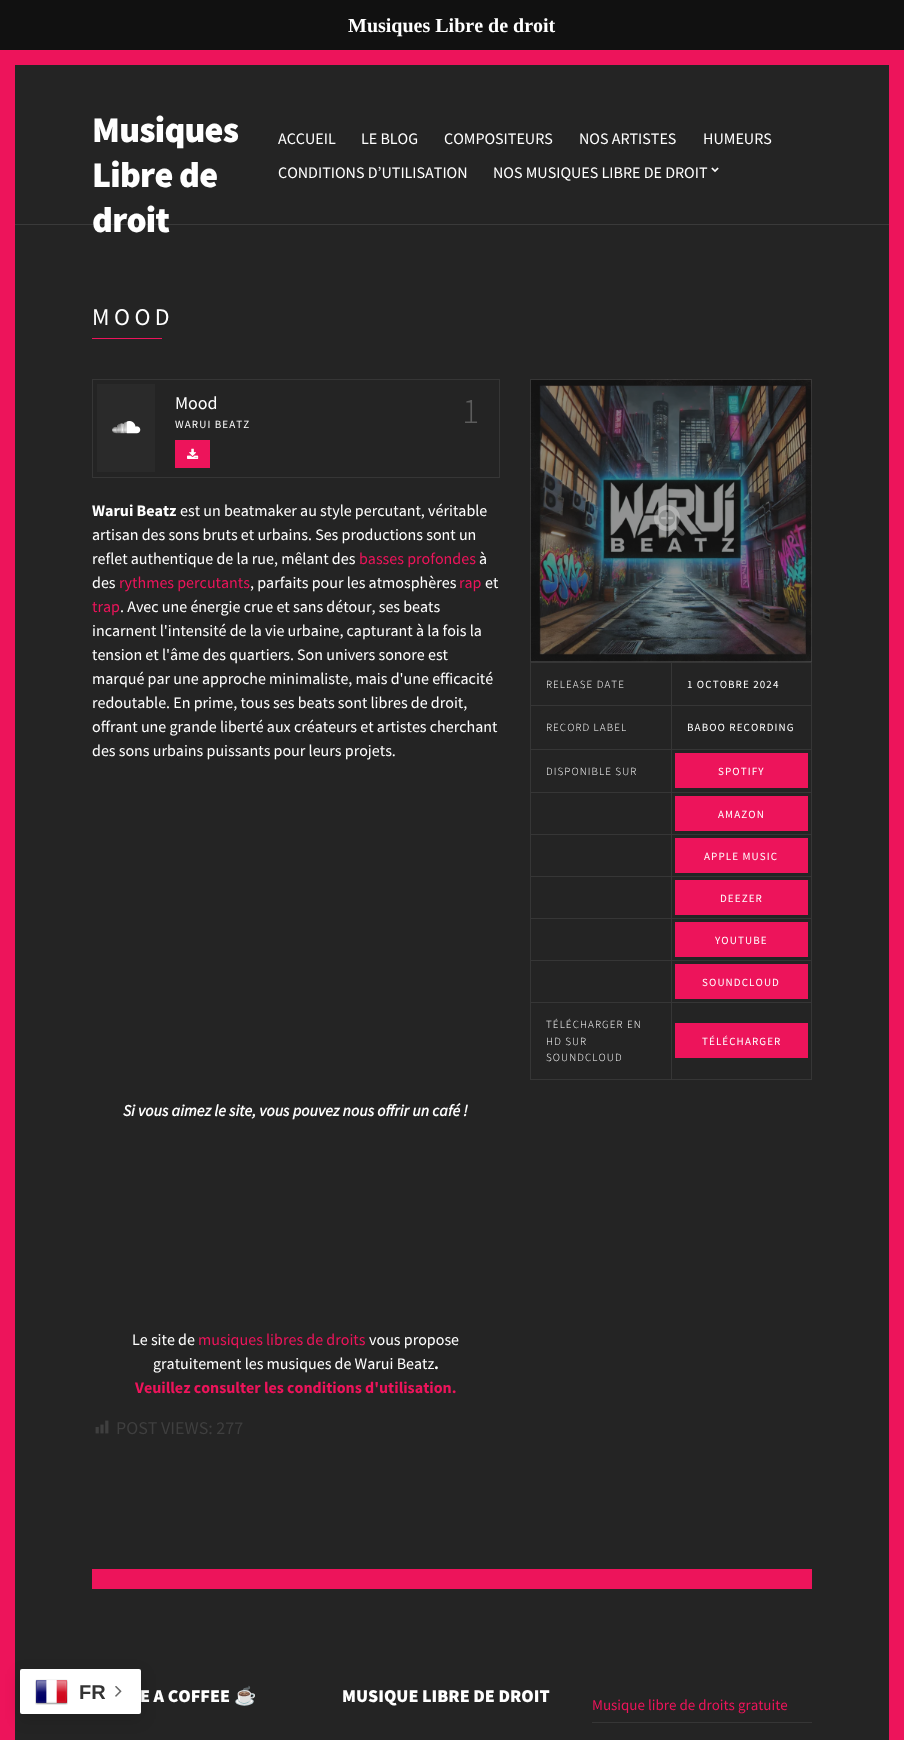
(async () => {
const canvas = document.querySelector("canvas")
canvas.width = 904
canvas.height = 1740
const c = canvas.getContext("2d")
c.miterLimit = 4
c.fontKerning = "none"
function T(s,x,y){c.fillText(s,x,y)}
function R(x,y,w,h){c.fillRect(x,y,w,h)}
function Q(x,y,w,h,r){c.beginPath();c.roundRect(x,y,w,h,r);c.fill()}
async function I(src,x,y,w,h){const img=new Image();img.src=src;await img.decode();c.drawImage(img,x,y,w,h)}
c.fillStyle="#242424"
R(0,0,904,1740)
c.fillStyle="#111"
R(0,0,904,50)
c.font="bold 20px Liberation Serif"
c.fillStyle="#fff"
T("Musiques Libre de droit",348,32)
c.strokeStyle="#ed145b"
c.lineWidth=15
c.strokeRect(7.5,57.5,889,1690)
c.fillStyle="#3a3a3a"
R(15,224,874,1)
c.letterSpacing="-0.75px"
c.font="900 36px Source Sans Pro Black"
c.fillStyle="#fff"
T("Musiques",92,142)
T("Libre de",92,187)
T("droit",92,232)
c.letterSpacing="0px"
c.font="16px Source Sans Pro"
T("ACCUEIL",278,144)
T("LE BLOG",361,144)
T("COMPOSITEURS",444,144)
T("NOS ARTISTES",579,144)
T("HUMEURS",703,144)
T("CONDITIONS D’UTILISATION",278,178)
T("NOS MUSIQUES LIBRE DE DROIT",493,178)
await I("1.png",711,167,8,6)
c.letterSpacing="4.5px"
c.font="24px Source Sans Pro"
T("MOOD",92,325)
c.fillStyle="#ed145b"
R(92,338,70,1)
c.strokeStyle="#363636"
c.lineWidth=1
c.strokeRect(92.5,379.5,407,98)
c.fillStyle="#2a2a2a"
R(97,384,58,88)
await I("2.png",112,421,29,13)
c.letterSpacing="0px"
c.font="18px Source Sans Pro"
c.fillStyle="#fff"
T("Mood",175,409)
c.font="300 36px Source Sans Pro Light"
c.fillStyle="#5c5c5c"
T("1",462,423)
c.letterSpacing="1.1px"
c.font="11px Source Sans Pro"
c.fillStyle="#fff"
T("WARUI BEATZ",175,428)
c.fillStyle="#ed145b"
R(175,440,35,28)
await I("3.png",187,448,12,11)
c.letterSpacing="0px"
c.font="bold 16px Source Sans Pro"
c.fillStyle="#fff"
T("Warui Beatz",92,516)
c.font="16px Source Sans Pro"
T("est un beatmaker au style percutant, véritable",180,516)
T("artisan des sons bruts et urbains. Ses productions sont un",92,540)
T("reflet authentique de la rue, mêlant des",92,564)
c.fillStyle="#ed145b"
T("basses profondes",359,564)
c.fillStyle="#fff"
T("à",479,564)
T("des",92,588)
c.fillStyle="#ed145b"
T("rythmes percutants",119,588)
c.fillStyle="#fff"
T(", parfaits pour les atmosphères",250,588)
c.fillStyle="#ed145b"
T("rap",459,588)
c.fillStyle="#fff"
T("et",485,588)
c.fillStyle="#ed145b"
T("trap",92,612)
c.fillStyle="#fff"
T(". Avec une énergie crue et sans détour, ses beats",120,612)
T("incarnent l'intensité de la vie urbaine, capturant à la fois la",92,636)
T("tension et l'âme des quartiers. Son univers sonore est",92,660)
T("marqué par une approche minimaliste, mais d'une efficacité",92,684)
T("redoutable. En prime, tous ses beats sont libres de droit,",92,708)
T("offrant une grande liberté aux créateurs et artistes cherchant",92,732)
T("des sons urbains puissants pour leurs projets.",92,756)
c.font="italic bold 16px Source Sans Pro"
T("Si vous aimez le site, vous pouvez nous offrir un café !",123,1116)
c.font="16px Source Sans Pro"
T("Le site de",132,1345)
c.fillStyle="#ed145b"
T("musiques libres de droits",198,1345)
c.fillStyle="#fff"
T("vous propose",369,1345)
T("gratuitement les musiques de Warui Beatz",153,1369)
c.font="bold 16px Source Sans Pro"
T(".",434,1369)
c.fillStyle="#ed145b"
T("Veuillez consulter les conditions d'utilisation.",135,1393)
await I("4.png",95,1420,14,14)
c.font="18px Source Sans Pro"
c.fillStyle="#3f3f3f"
T("POST VIEWS: 277",116,1434)
await I("5.png",530,379,282,283)
await I("6.png",654,505,31,31)
c.strokeStyle="#ffffff26"
c.strokeRect(530.5,379.5,281,282)
c.fillStyle="#363636"
R(530,662,282,1)
R(530,705,141,1)
R(530,663,1,43)
c.letterSpacing="1.1px"
c.font="300 11px Source Sans Pro Light"
c.fillStyle="#fff"
T("RELEASE DATE",546,688)
c.fillStyle="#363636"
R(811,663,1,417)
R(671,705,141,1)
R(671,663,1,43)
c.font="11px Source Sans Pro"
c.fillStyle="#fff"
T("1 OCTOBRE 2024",687,688)
c.fillStyle="#363636"
R(530,749,282,1)
R(530,706,1,44)
c.font="300 11px Source Sans Pro Light"
c.fillStyle="#fff"
T("RECORD LABEL",546,731)
c.fillStyle="#363636"
R(671,706,1,44)
c.font="11px Source Sans Pro"
c.fillStyle="#fff"
T("BABOO RECORDING",687,731)
c.fillStyle="#363636"
R(530,792,282,1)
R(530,750,1,43)
c.font="300 11px Source Sans Pro Light"
c.fillStyle="#fff"
T("DISPONIBLE SUR",546,775)
c.fillStyle="#363636"
R(671,750,1,43)
c.fillStyle="#ed145b"
R(675,753,133,35)
c.font="11px Source Sans Pro"
c.fillStyle="#fff"
T("SPOTIFY",718,775)
c.fillStyle="#363636"
R(530,834,282,1)
R(530,793,1,42)
R(671,793,1,42)
c.fillStyle="#ed145b"
R(675,796,133,35)
c.fillStyle="#fff"
T("AMAZON",718,818)
c.fillStyle="#363636"
R(530,876,282,1)
R(530,835,1,42)
R(671,835,1,42)
c.fillStyle="#ed145b"
R(675,838,133,35)
c.fillStyle="#fff"
T("APPLE MUSIC",704,860)
c.fillStyle="#363636"
R(530,918,282,1)
R(530,877,1,42)
R(671,877,1,42)
c.fillStyle="#ed145b"
R(675,880,133,35)
c.fillStyle="#fff"
T("DEEZER",720,902)
c.fillStyle="#363636"
R(530,960,282,1)
R(530,919,1,42)
R(671,919,1,42)
c.fillStyle="#ed145b"
R(675,922,133,35)
c.fillStyle="#fff"
T("YOUTUBE",715,944)
c.fillStyle="#363636"
R(530,1002,282,1)
R(530,961,1,42)
R(671,961,1,42)
c.fillStyle="#ed145b"
R(675,964,133,35)
c.fillStyle="#fff"
T("SOUNDCLOUD",702,986)
c.fillStyle="#363636"
R(530,1079,282,1)
R(530,1003,1,77)
c.font="300 11px Source Sans Pro Light"
c.fillStyle="#fff"
T("TÉLÉCHARGER EN",546,1028)
T("HD SUR",546,1045)
T("SOUNDCLOUD",546,1061)
c.fillStyle="#363636"
R(671,1003,1,77)
c.fillStyle="#ed145b"
R(675,1023,133,35)
c.font="11px Source Sans Pro"
c.fillStyle="#fff"
T("TÉLÉCHARGER",702,1045)
c.fillStyle="#ed145b"
R(92,1569,720,20)
c.letterSpacing="0px"
c.font="900 18px Source Sans Pro Black"
c.fillStyle="#fff"
T("E A COFFEE",140,1702)
c.font="bold 18px Noto Color Emoji"
T("☕",234,1702)
c.font="900 18px Source Sans Pro Black"
T("MUSIQUE LIBRE DE DROIT",342,1702)
c.fillStyle="#363636"
R(592,1722,220,1)
c.font="15px Source Sans Pro"
c.fillStyle="#ed145b"
T("Musique libre de droits gratuite",592,1710)
c.fillStyle="#00000026"
c.filter="blur(7.5px)"
c.beginPath()
c.roundRect(20,1674,121,45,2)
c.fill()
c.filter="none"
c.fillStyle="#fff"
Q(20,1669,121,45,2)
await I("7.png",35,1679,33,26)
c.font="bold 20px Liberation Sans"
c.fillStyle="#333"
T("FR",79,1699)
await I("8.png",115,1686,7,11)
})()
